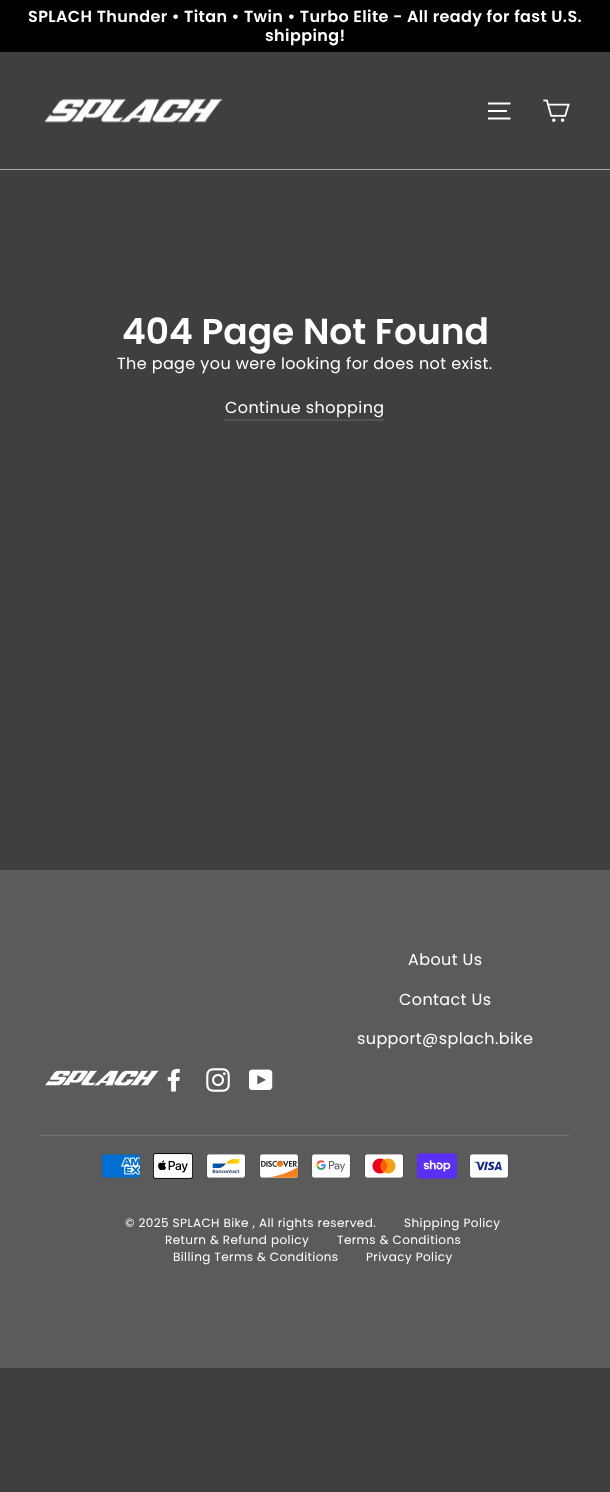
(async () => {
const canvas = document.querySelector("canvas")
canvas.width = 610
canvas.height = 1492
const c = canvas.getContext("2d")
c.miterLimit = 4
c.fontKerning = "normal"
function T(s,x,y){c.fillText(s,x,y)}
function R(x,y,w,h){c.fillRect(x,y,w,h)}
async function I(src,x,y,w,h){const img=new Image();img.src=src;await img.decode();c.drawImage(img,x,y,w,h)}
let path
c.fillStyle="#3f3f3f"
R(0,0,610,1492)
c.fillStyle="#000"
R(0,0,610,52)
c.letterSpacing="0.4px"
c.font="600 16px Poppins"
c.fillStyle="#fff"
T("SPLACH Thunder • Titan • Twin • Turbo Elite - All ready for fast U.S.",28,22)
T("shipping!",265,41)
c.fillStyle="#a7a7a7"
R(0,169,610,1)
await I("1.png",44,98,179,25)
path = new Path2D("M488 103.5h22.5m-22.5 7.5h19m-19 7.5h22.5")
c.strokeStyle="#fff"
c.lineWidth=1.8
c.stroke(path)
await I("2.png",543,99,27,23)
c.letterSpacing="0px"
c.font="600 36px Poppins"
c.fillStyle="#fff"
T("404 Page Not Found",122,344)
c.letterSpacing="0.4px"
c.font="16px Poppins"
T("The page you were looking for does not exist.",117,369)
T("Continue shopping",225,413)
c.fillStyle="#525252"
R(225,419,160,2)
c.fillStyle="#5b5b5b"
R(0,870,610,498)
c.fillStyle="#fff"
T("About Us",408,965)
T("Contact Us",399,1005)
T("support@splach.bike",357,1044)
await I("3.png",45,1070,114,16)
await I("4.png",167,1068,13,24)
await I("5.png",206,1068,24,24)
await I("6.png",249,1069,24,21)
c.fillStyle="#6f6f6f"
R(40,1135,530,1)
await I("7.png",101,1154,40,24)
await I("8.png",153,1153,40,26)
await I("9.png",206,1154,40,24)
await I("10.png",259,1154,40,24)
await I("11.png",311,1154,40,24)
await I("12.png",364,1154,40,24)
await I("13.png",417,1153,40,26)
await I("14.png",469,1154,40,24)
c.font="12px Poppins"
c.fillStyle="#fff"
T("© 2025 SPLACH Bike , All rights reserved.",125,1227)
T("Shipping Policy",404,1227)
T("Return & Refund policy",165,1244)
T("Terms & Conditions",337,1244)
T("Billing Terms & Conditions",173,1261)
T("Privacy Policy",366,1261)
})()
